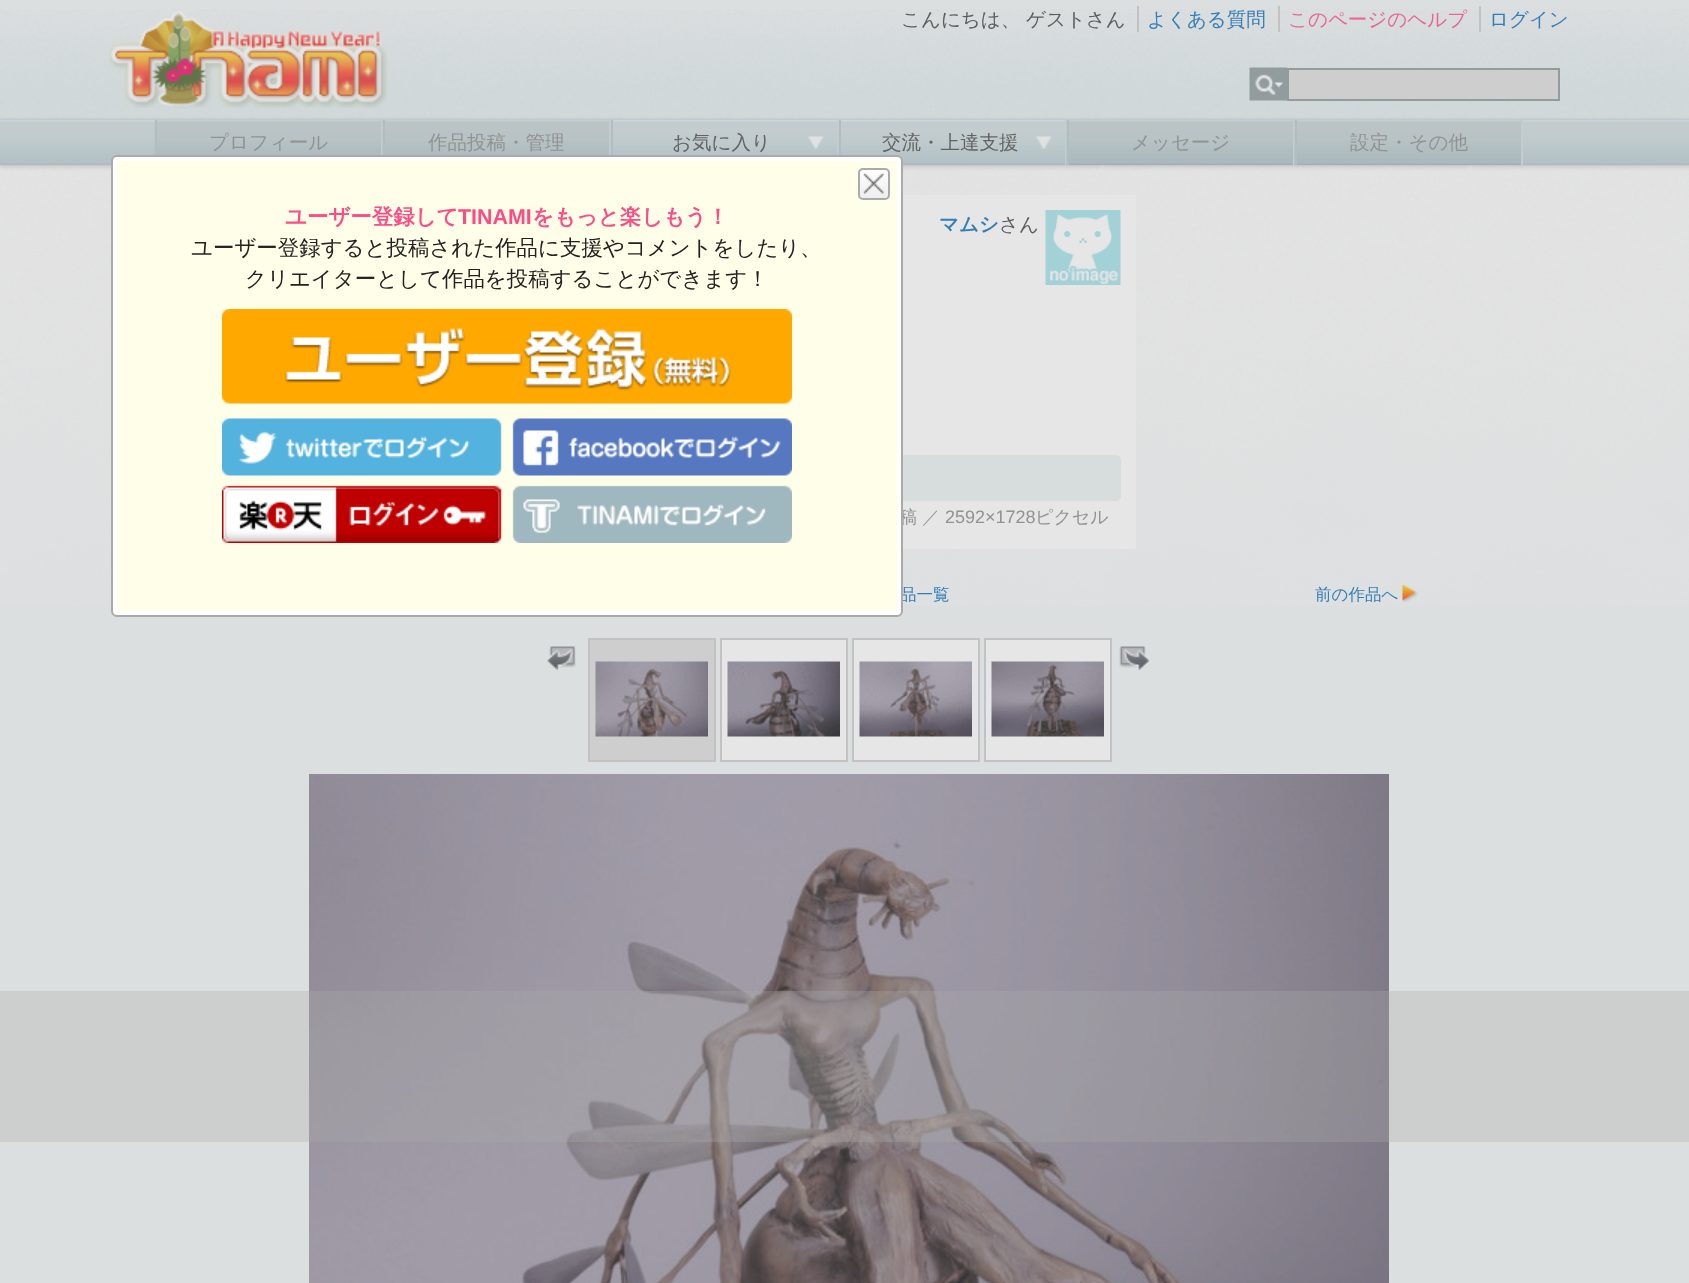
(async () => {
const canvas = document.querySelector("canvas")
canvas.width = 1689
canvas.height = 1283
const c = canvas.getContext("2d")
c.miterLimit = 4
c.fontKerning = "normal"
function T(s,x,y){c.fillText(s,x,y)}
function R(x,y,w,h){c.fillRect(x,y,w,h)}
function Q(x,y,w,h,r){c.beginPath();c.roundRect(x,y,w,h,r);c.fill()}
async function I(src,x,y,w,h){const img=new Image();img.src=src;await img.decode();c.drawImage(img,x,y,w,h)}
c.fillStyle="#dbdfdf"
R(0,0,1689,1283)
await I("1.png",0,9,1689,597)
await I("2.png",109,11,278,97)
c.font="500 19.5px WenQuanYi Zen Hei"
c.fillStyle="#595f5f"
T("こんにちは、",901,26)
T("ゲストさん",1026,26)
c.fillStyle="#337eb8"
T("よくある質問",1147,26)
c.fillStyle="#c2c2c2"
R(1137,6,2,26)
c.fillStyle="#e66890"
T("このページのヘルプ",1288,26)
c.fillStyle="#c2c2c2"
R(1278,6,2,26)
c.fillStyle="#337eb8"
T("ログイン",1489,26)
c.fillStyle="#c2c2c2"
R(1479,6,2,26)
await I("3.png",1249,67,38,34)
c.fillStyle="#cecece"
c.beginPath()
c.rect(1288,69,271,31)
c.fill()
c.strokeStyle="#929b9d"
c.lineWidth=2
c.stroke()
await I("4.png",154,120,227,35)
c.fillStyle="#c3ccd0"
R(381,120,2,35)
c.fillStyle="#b1bec1"
R(155,120,2,35)
c.fillStyle="#929292"
T("プロフィール",209,149)
await I("5.png",382,120,227,35)
c.fillStyle="#c3ccd0"
R(609,120,2,35)
c.fillStyle="#b1bec1"
R(383,120,2,35)
c.fillStyle="#929292"
T("作品投稿・管理",428,149)
await I("6.png",610,120,227,35)
c.fillStyle="#c3ccd0"
R(837,120,2,35)
c.fillStyle="#b1bec1"
R(611,120,2,35)
c.fillStyle="#636363"
T("お気に入り",672,149)
await I("7.png",838,120,227,45)
c.fillStyle="#c3ccd0"
R(1065,120,2,45)
c.fillStyle="#b1bec1"
R(839,120,2,35)
c.fillStyle="#636363"
T("交流・上達支援",882,149)
await I("8.png",1066,120,227,45)
c.fillStyle="#c3ccd0"
R(1293,120,2,45)
c.fillStyle="#b1bec1"
R(1067,120,2,45)
c.fillStyle="#929292"
T("メッセージ",1131,149)
await I("9.png",1294,120,227,45)
c.fillStyle="#c3ccd0"
R(1521,120,2,45)
c.fillStyle="#b1bec1"
R(1295,120,2,45)
c.fillStyle="#929292"
T("設定・その他",1350,149)
c.fillStyle="#e6e6e6"
R(903,195,233,354)
c.fillStyle="#d7dcdc"
Q(144,455,977,46,5)
c.font="500 18px WenQuanYi Zen Hei"
c.fillStyle="#929292"
T("稿",899,523)
c.font="500 16.5px WenQuanYi Zen Hei"
c.fillStyle="#337eb8"
T("品一覧",900,600)
c.fillStyle="#fff"
c.beginPath()
c.roundRect(112,156,790,460,5)
c.fill()
c.strokeStyle="#aaa"
c.stroke()
c.fillStyle="#fffee8"
R(117,161,780,450)
await I("10.png",858,168,32,32)
c.beginPath()
c.roundRect(859,169,30,30,4)
c.stroke()
c.font="bold 21.45px WenQuanYi Zen Hei"
c.fillStyle="#ff4b85"
T("ユーザー登録して",285,224)
c.font="bold 21.45px Liberation Sans"
T("TINAMI",458,224)
c.font="bold 21.45px WenQuanYi Zen Hei"
T("をもっと楽しもう！",532,224)
c.font="500 21.45px WenQuanYi Zen Hei"
c.fillStyle="#222"
T("ユーザー登録すると投稿された作品に支援やコメントをしたり、",191,255)
T("クリエイターとして作品を投稿することができます！",245,286)
await I("11.png",222,309,570,95)
await I("12.png",222,418,570,125)
c.font="bold 19.5px WenQuanYi Zen Hei"
c.fillStyle="#337eb8"
T("マムシ",939,231)
c.font="500 19.5px WenQuanYi Zen Hei"
c.fillStyle="#595f5f"
T("さん",999,231)
await I("13.png",1045,210,76,75)
c.font="500 18px WenQuanYi Zen Hei"
c.fillStyle="#929292"
T("／",922,523)
c.font="18px Liberation Sans"
T("2592×1728",945,523)
c.font="500 18px WenQuanYi Zen Hei"
T("ピクセル",1035,523)
c.font="500 16.5px WenQuanYi Zen Hei"
c.fillStyle="#337eb8"
T("前の作品へ",1315,600)
await I("14.png",1402,585,16,18)
await I("15.png",546,646,30,25)
c.fillStyle="#cecece"
c.beginPath()
c.rect(589,639,126,122)
c.fill()
c.strokeStyle="#c2c2c2"
c.stroke()
await I("16.png",595,661,113,76)
c.fillStyle="#e6e6e6"
c.beginPath()
c.rect(721,639,126,122)
c.fill()
c.stroke()
await I("17.png",727,661,113,76)
c.beginPath()
c.rect(853,639,126,122)
c.fill()
c.stroke()
await I("18.png",859,661,113,76)
c.beginPath()
c.rect(985,639,126,122)
c.fill()
c.stroke()
await I("19.png",991,661,113,76)
await I("20.png",1119,646,32,25)
await I("21.png",309,774,1080,509)
c.fillStyle="#ababab4d"
R(0,991,1689,151)
})()
